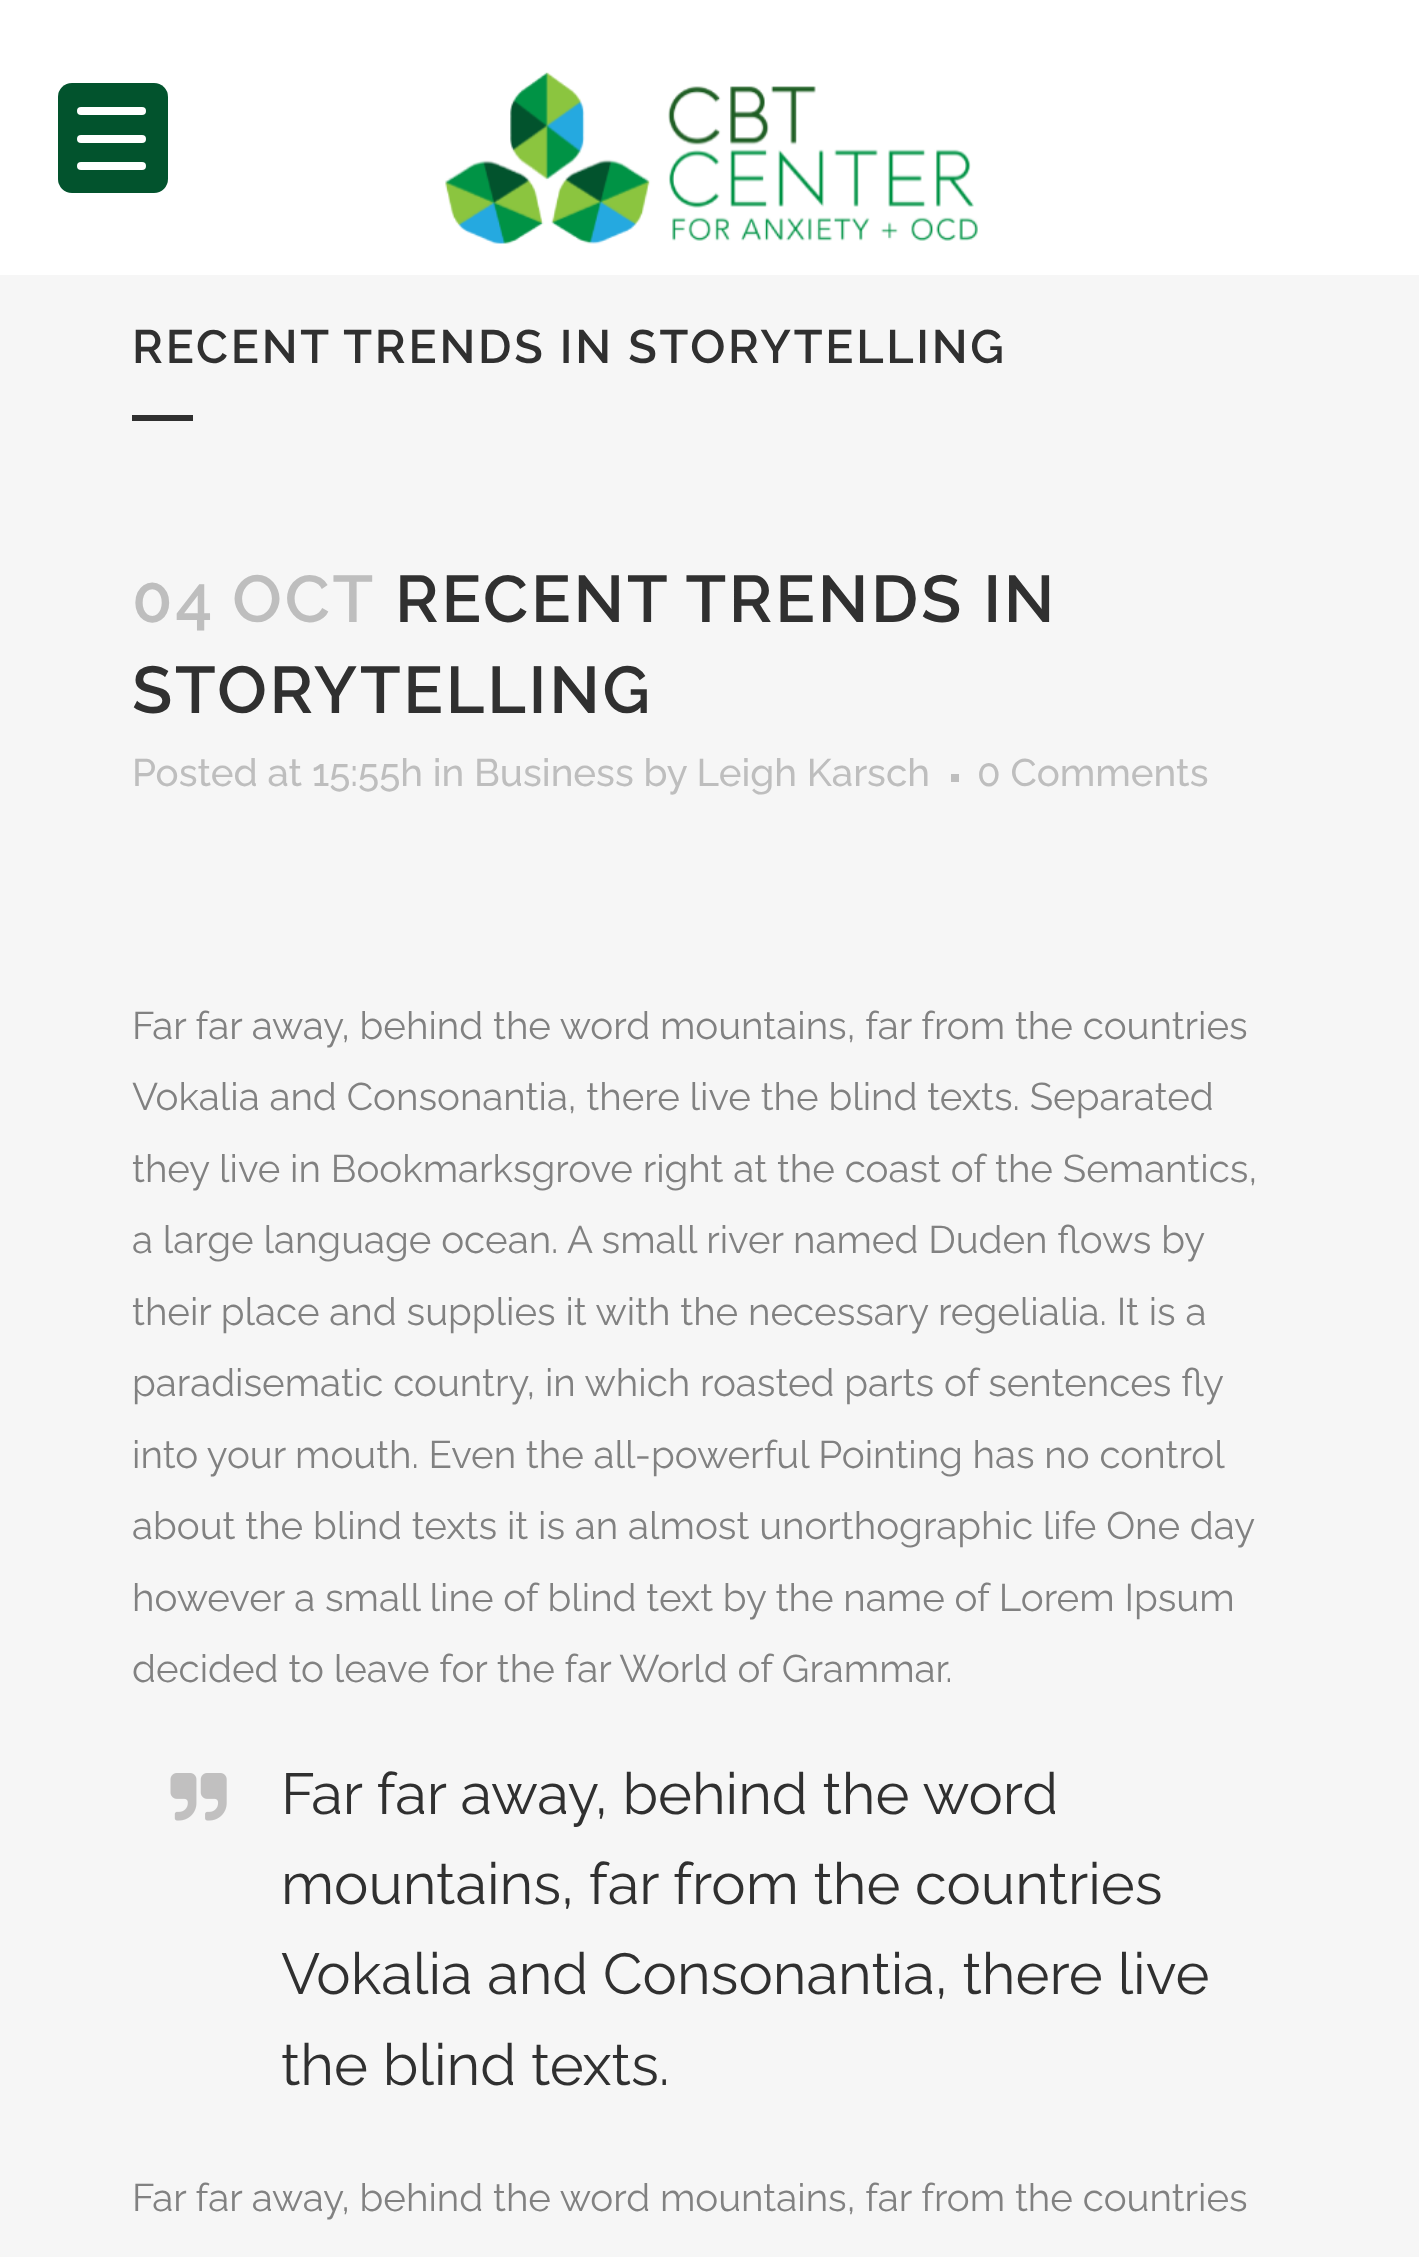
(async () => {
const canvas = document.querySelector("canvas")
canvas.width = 1419
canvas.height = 2257
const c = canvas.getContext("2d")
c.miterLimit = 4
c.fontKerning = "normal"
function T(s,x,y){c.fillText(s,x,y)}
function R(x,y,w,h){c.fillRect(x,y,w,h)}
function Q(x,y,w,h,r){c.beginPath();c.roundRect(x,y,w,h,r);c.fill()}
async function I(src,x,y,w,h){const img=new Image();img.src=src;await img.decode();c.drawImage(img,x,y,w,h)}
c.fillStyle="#f6f6f6"
R(0,0,1419,2257)
c.fillStyle="#fff"
R(0,0,1419,275)
c.fillStyle="#02532d"
Q(58,83,110,110,14)
c.fillStyle="#fff"
Q(77,135,69,8,4)
Q(77,107,69,8,4)
Q(77,162,69,8,4)
await I("1.png",445,72,533,172)
c.letterSpacing="2.75px"
c.font="600 46.75px Raleway"
c.fillStyle="#303030"
T("RECENT TRENDS IN STORYTELLING",132,363)
R(132,415,61,6)
c.wordSpacing="-2px"
c.font="600 66px Raleway"
c.fillStyle="#bebebe"
T("04 OCT",132,622)
c.wordSpacing="0px"
c.fillStyle="#303030"
T("RECENT TRENDS IN",395,622)
T("STORYTELLING",132,713)
c.letterSpacing="0px"
c.font="500 38.5px Raleway"
c.fillStyle="#bebebe"
T("Posted at 15:55h in Business by Leigh Karsch",132,786)
R(951,774,8,8)
T("0 Comments",977,786)
c.font="38.5px Raleway"
c.fillStyle="#818181"
T("Far far away, behind the word mountains, far from the countries",132,1039)
T("Vokalia and Consonantia, there live the blind texts. Separated",132,1110)
T("they live in Bookmarksgrove right at the coast of the Semantics,",132,1182)
T("a large language ocean. A small river named Duden flows by",132,1253)
T("their place and supplies it with the necessary regelialia. It is a",132,1325)
T("paradisematic country, in which roasted parts of sentences fly",132,1396)
c.wordSpacing="-0.1px"
T("into your mouth. Even the all-powerful Pointing has no control",132,1468)
c.wordSpacing="0px"
T("about the blind texts it is an almost unorthographic life One day",132,1539)
T("however a small line of blind text by the name of Lorem Ipsum",132,1611)
T("decided to leave for the far World of Grammar.",132,1682)
await I("2.png",170,1773,57,48)
c.font="57.75px Raleway"
c.fillStyle="#303030"
T("Far far away, behind the word",281,1814)
T("mountains, far from the countries",281,1904)
T("Vokalia and Consonantia, there live",281,1994)
T("the blind texts.",281,2085)
c.font="38.5px Raleway"
c.fillStyle="#818181"
T("Far far away, behind the word mountains, far from the countries",132,2211)
})()
